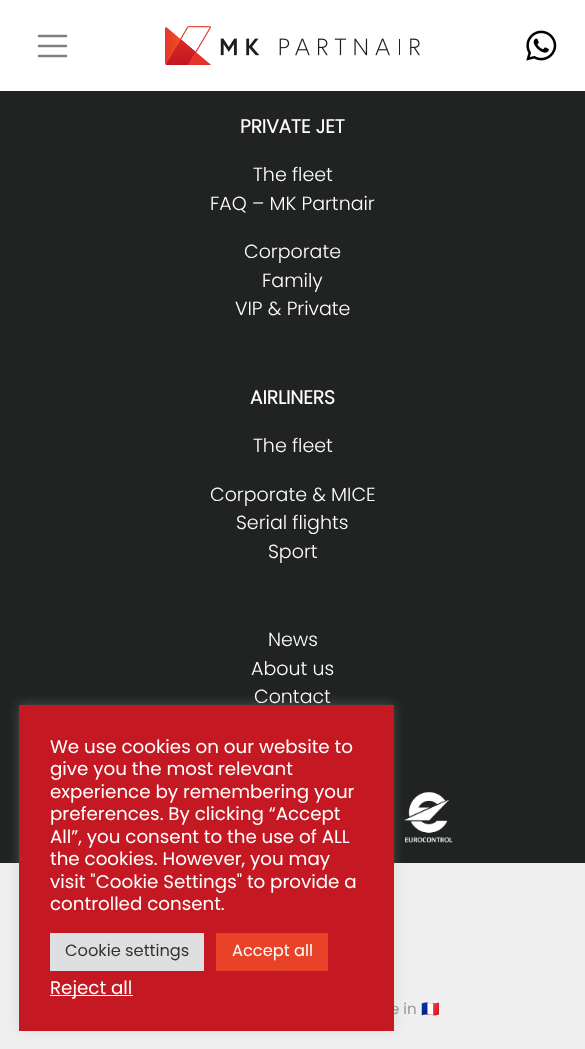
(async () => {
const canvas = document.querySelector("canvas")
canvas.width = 585
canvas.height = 1049
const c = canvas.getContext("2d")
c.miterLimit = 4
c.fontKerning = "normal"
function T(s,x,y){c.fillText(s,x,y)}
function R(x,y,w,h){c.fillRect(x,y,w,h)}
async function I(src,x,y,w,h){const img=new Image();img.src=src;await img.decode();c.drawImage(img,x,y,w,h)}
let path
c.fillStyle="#212222"
R(0,0,585,1049)
c.fillStyle="#fff"
R(0,0,585,91)
path = new Path2D("M39 36h27m-27 10h27m-27 10h27")
c.strokeStyle="#808080"
c.lineWidth=2.5
c.lineCap="round"
c.stroke(path)
await I("1.png",165,26,255,39)
await I("2.png",526,30,31,31)
c.font="bold 19px Poppins"
T("PRIVATE JET",240,133)
c.font="300 19px Poppins"
T("The fleet",253,181)
T("FAQ – MK Partnair",210,210)
T("Corporate",244,258)
T("Family",262,287)
T("VIP & Private",235,315)
c.font="bold 19px Poppins"
T("AIRLINERS",250,404)
c.font="300 19px Poppins"
T("The fleet",253,452)
T("Corporate & MICE",210,501)
T("Serial flights",236,529)
T("Sport",268,558)
T("News",268,646)
T("About us",251,675)
T("Contact",254,703)
await I("3.png",404,792,49,51)
c.fillStyle="#eeefee"
R(0,863,585,186)
c.font="15px Poppins"
c.fillStyle="#929892"
T("e in",390,1014)
c.font="15px Noto Color Emoji"
T("🇫🇷",421,1014)
c.fillStyle="#acabab4d"
c.filter="blur(6px)"
c.beginPath()
c.rect(19,704,375,326)
c.fill()
c.filter="none"
c.fillStyle="#c41923"
R(19,705,375,326)
c.font="18.3px Poppins"
c.fillStyle="#fff"
T("We use cookies on our website to",50,753)
T("give you the most relevant",50,775)
T("experience by remembering your",50,798)
T("preferences. By clicking “Accept",50,820)
T("All”, you consent to the use of ALL",50,843)
T("the cookies. However, you may",50,865)
T("visit \"Cookie Settings\" to provide a",50,888)
T("controlled consent.",50,910)
c.fillStyle="#dedfe0"
R(50,933,154,38)
c.font="16.25px Poppins"
c.fillStyle="#333"
T("Cookie settings",65,956)
c.fillStyle="#e84228"
R(216,933,112,38)
c.fillStyle="#fff"
T("Accept all",232,956)
R(50,995,83,1)
c.font="18.3px Poppins"
T("Reject all",50,994)
})()
